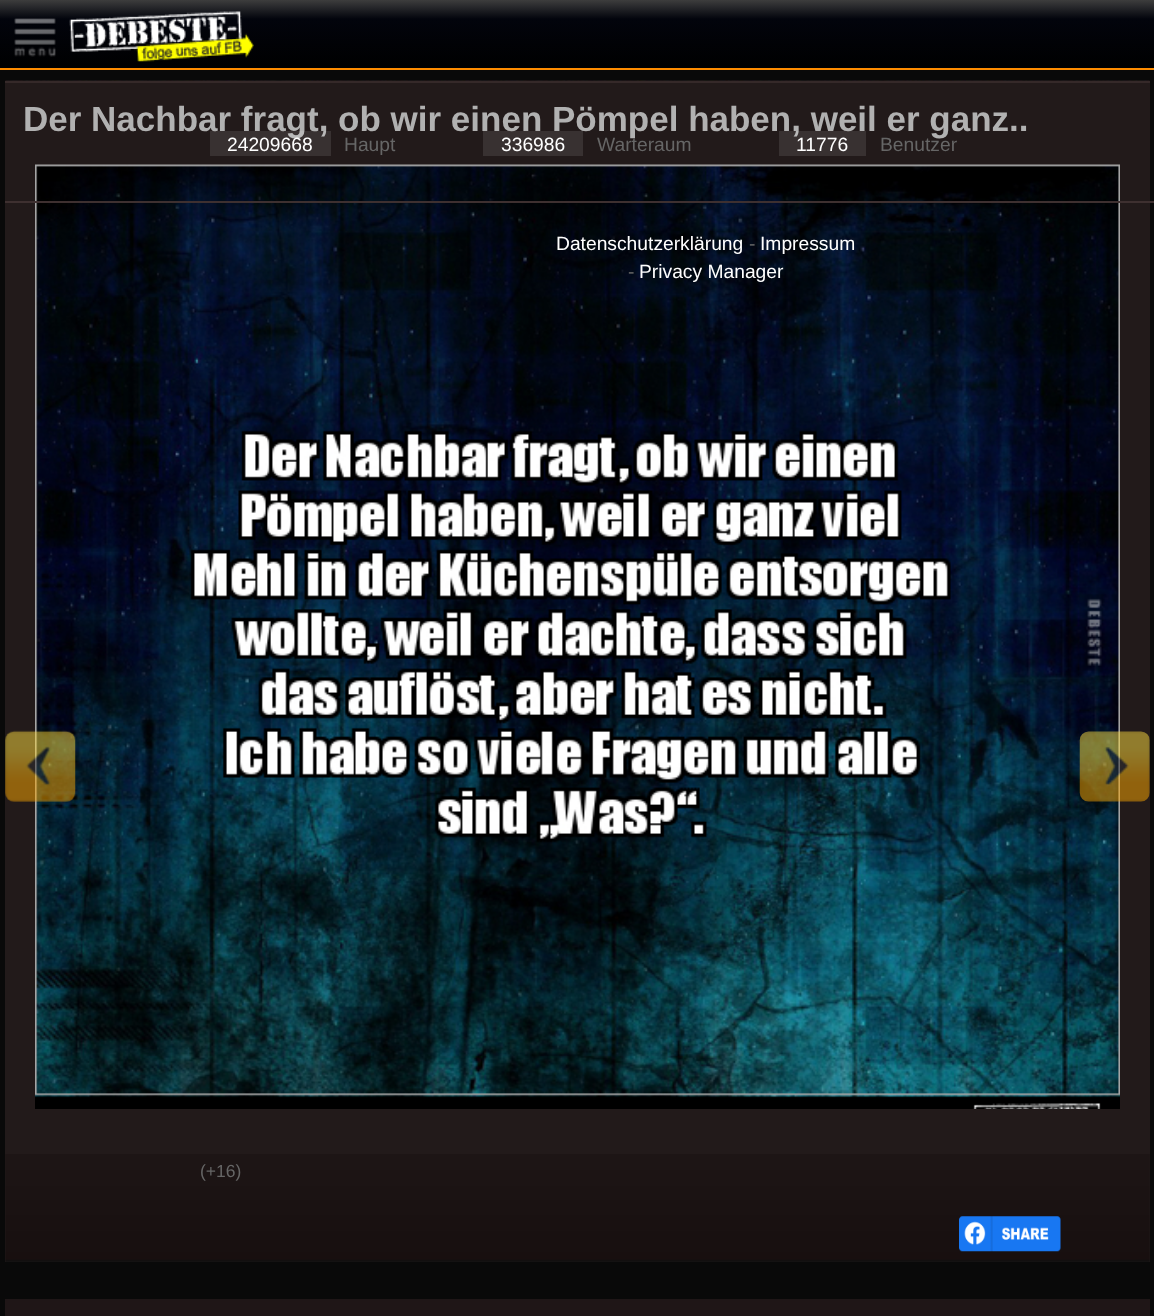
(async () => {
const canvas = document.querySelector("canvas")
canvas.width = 1154
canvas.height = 1316
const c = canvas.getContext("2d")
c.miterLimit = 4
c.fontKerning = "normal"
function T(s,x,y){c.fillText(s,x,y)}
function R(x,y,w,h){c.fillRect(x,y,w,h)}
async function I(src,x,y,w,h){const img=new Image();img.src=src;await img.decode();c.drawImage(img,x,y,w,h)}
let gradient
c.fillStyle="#090909"
R(0,0,1154,1316)
gradient = c.createLinearGradient(578,0,578,68)
gradient.addColorStop(0,"#3d3d3d")
gradient.addColorStop(.28,"#02040c")
gradient.addColorStop(1,"#000")
c.fillStyle = gradient
R(0,0,1154,68)
c.fillStyle="#ff8c00"
R(0,68,1154,2)
await I("1.png",14,18,42,39)
await I("2.png",69,11,185,51)
c.fillStyle="#221a1a"
R(5,83,1145,1179)
await I("3.png",5,1154,1145,108)
c.fillStyle="#352929"
R(5,81,1145,2)
c.font="bold 35px Liberation Sans"
c.fillStyle="#b1b1b1"
T("Der Nachbar fragt, ob wir einen Pömpel haben, weil er ganz..",23,131)
await I("4.png",35,164,1085,945)
await I("5.png",5,730,71,72)
await I("6.png",1079,731,71,71)
c.font="17.5px Liberation Sans"
c.fillStyle="#666"
T("(+16)",200,1177)
await I("7.png",959,1216,102,36)
await I("8.png",5,80,1145,1)
c.fillStyle="#ffffff1a"
R(210,131,121,25)
c.font="19.25px Liberation Sans"
c.fillStyle="#fff"
T("24209668",227,151)
c.fillStyle="#666"
T("Haupt",344,151)
c.fillStyle="#ffffff1a"
R(483,131,100,25)
c.fillStyle="#fff"
T("336986",501,151)
c.fillStyle="#666"
T("Warteraum",597,151)
c.fillStyle="#ffffff1a"
R(779,131,87,25)
c.fillStyle="#fff"
T("11776",796,151)
c.fillStyle="#666"
T("Benutzer",880,151)
c.fillStyle="#3e3030"
R(5,201,1149,2)
c.fillStyle="#fff"
T("Datenschutzerklärung",556,250)
c.fillStyle="#666"
T("-",749,250)
c.fillStyle="#fff"
T("Impressum",760,250)
c.fillStyle="#666"
T("-",628,278)
c.fillStyle="#fff"
T("Privacy Manager",639,278)
c.fillStyle="#1f1617"
R(5,1299,1145,17)
})()
